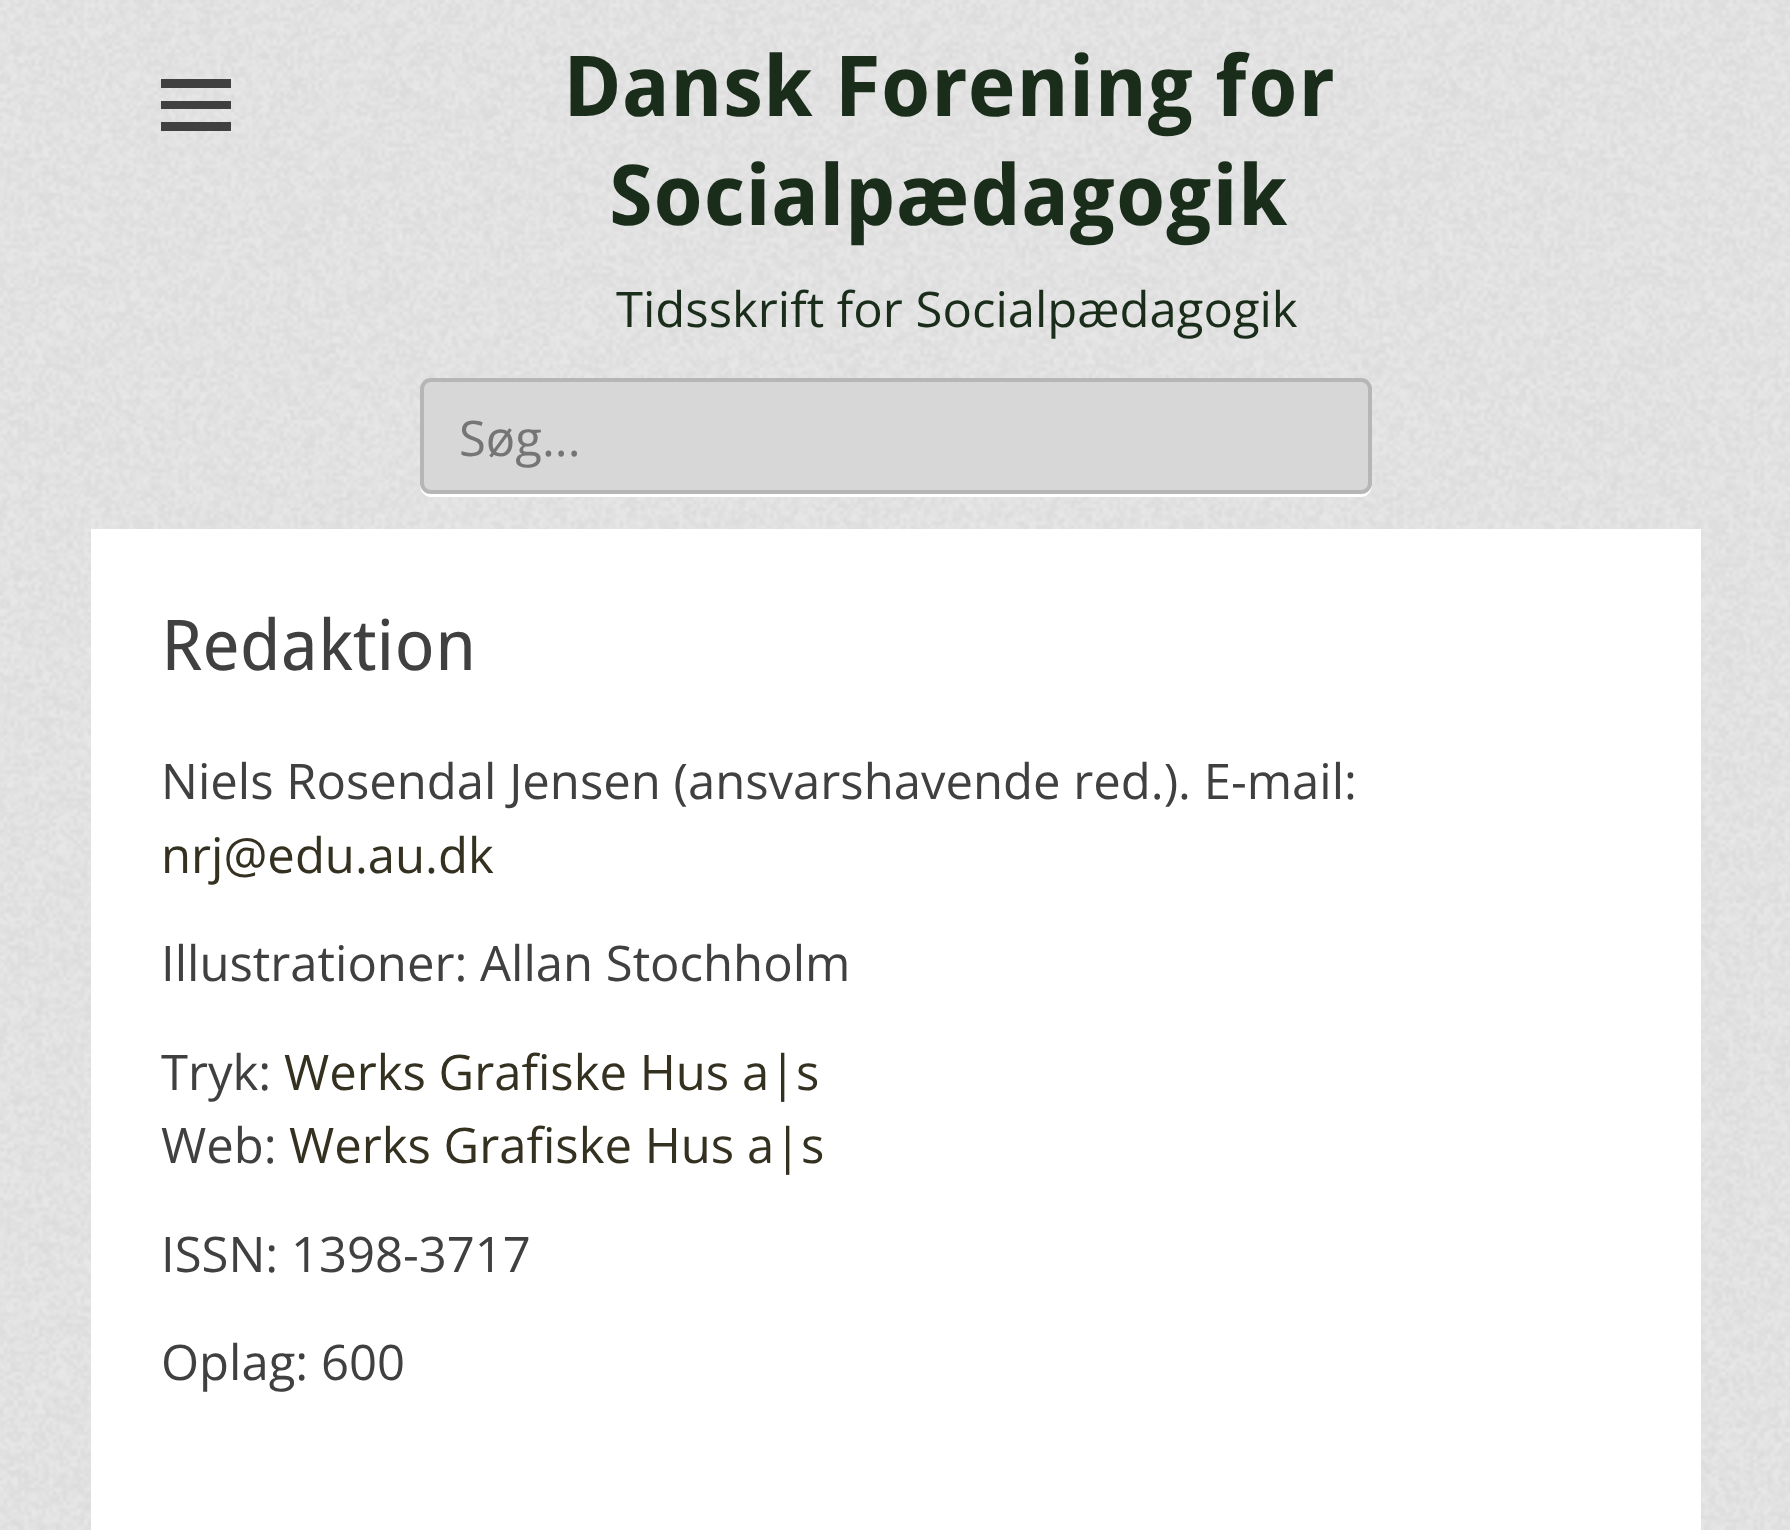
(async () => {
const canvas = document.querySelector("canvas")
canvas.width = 1790
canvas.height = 1530
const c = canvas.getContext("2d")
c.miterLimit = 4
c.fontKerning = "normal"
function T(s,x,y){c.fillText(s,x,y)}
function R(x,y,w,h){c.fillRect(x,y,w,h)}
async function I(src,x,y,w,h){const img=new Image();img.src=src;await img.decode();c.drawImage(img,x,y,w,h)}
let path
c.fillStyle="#fff"
R(0,0,1790,1530)
await I("1.png",0,0,1790,1530)
c.fillStyle="#404040"
path = new Path2D("M161 131v-9h70v9zm0-52h70v9h-70zm0 30v-8h70v8z")
c.fill(path)
c.font="bold 84px Droid Sans"
c.fillStyle="#1a2d1a"
T("Dansk Forening for",563,116)
T("Socialpædagogik",609,225)
c.font="49px Open Sans"
T("Tidsskrift for Socialpædagogik",616,327)
c.fillStyle="#fff"
path = new Path2D("M420 483c0 7 3 14 11 14h930c8 0 11-7 11-14c0 6-5 11-10 11h-932c-5 0-10-5-10-11z")
c.fill(path)
c.fillStyle="#d7d7d7"
c.beginPath()
c.roundRect(422,380,948,112,9)
c.fill()
c.strokeStyle="#b6b6b6"
c.lineWidth=4
c.stroke()
c.fillStyle="#757575"
T("Søg...",459,456)
c.fillStyle="#fff"
R(91,529,1610,1001)
c.font="70px Droid Sans"
c.fillStyle="#404040"
T("Redaktion",161,670)
c.font="49px Open Sans"
T("Niels Rosendal Jensen (ansvarshavende red.). E-mail:",161,799)
c.fillStyle="#343121"
T("nrj@edu.au.dk",161,873)
c.fillStyle="#404040"
T("Illustrationer: Allan Stochholm",161,981)
T("Tryk:",161,1090)
c.fillStyle="#343121"
T("Werks Grafiske Hus a|s",284,1090)
c.fillStyle="#404040"
T("Web:",161,1163)
c.fillStyle="#343121"
T("Werks Grafiske Hus a|s",289,1163)
c.fillStyle="#404040"
T("ISSN: 1398-3717",161,1272)
T("Oplag: 600",161,1380)
})()
